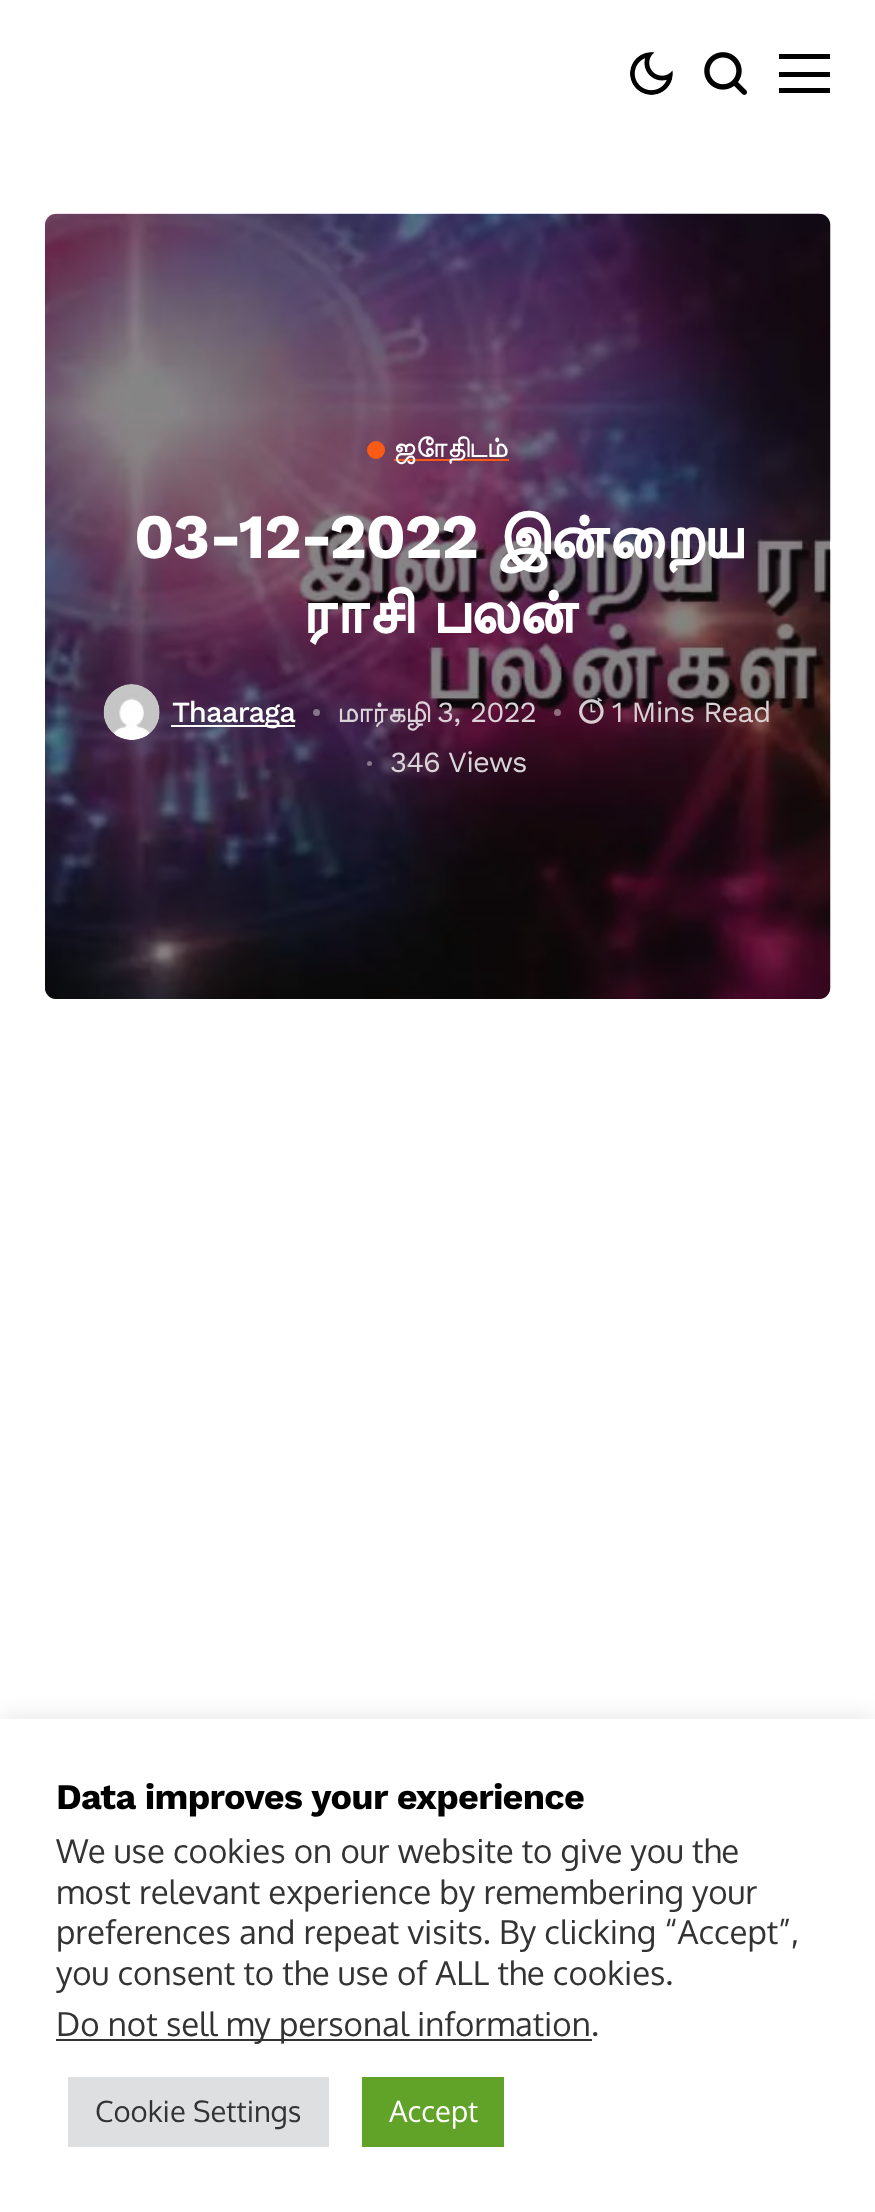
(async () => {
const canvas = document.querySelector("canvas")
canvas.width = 875
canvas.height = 2212
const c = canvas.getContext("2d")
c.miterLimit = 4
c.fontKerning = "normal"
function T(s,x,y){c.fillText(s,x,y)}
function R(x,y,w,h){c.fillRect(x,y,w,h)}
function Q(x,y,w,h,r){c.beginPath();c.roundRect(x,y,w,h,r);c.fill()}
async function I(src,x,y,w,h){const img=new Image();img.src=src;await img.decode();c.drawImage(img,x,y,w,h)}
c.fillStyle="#fff"
R(0,0,875,2212)
await I("1.png",630,52,43,43)
await I("2.png",704,52,43,43)
c.fillStyle="#000"
R(779,54,51,5)
R(779,72,51,5)
R(779,88,51,5)
await I("3.png",45,213,786,786)
c.fillStyle="#0f0e0e80"
Q(45,214,785,785,11)
c.fillStyle="#f95a16"
c.beginPath()
c.arc(376,450,9,0,7)
c.fill()
R(394,459,115,2)
c.letterSpacing="-0.9px"
c.font="29.25px FreeSans"
c.fillStyle="#fff"
T("ஜோதிடம்",393,457)
c.letterSpacing="-1.25px"
c.font="bold 63px Work Sans"
T("03-12-2022",134,558)
c.font="bold 63px FreeSans"
T("இன்றைய",494,558)
c.wordSpacing="6px"
T("ராசி பலன்",302,633)
await I("4.png",103,684,57,56)
R(171,725,124,2)
c.letterSpacing="-0.9px"
c.wordSpacing="0px"
c.font="500 29.25px Work Sans"
T("Thaaraga",172,722)
c.fillStyle="#ffffff66"
c.beginPath()
c.arc(316.5,712.5,3.5,0,7)
c.fill()
c.font="29.25px FreeSans"
c.fillStyle="#dbd3da"
T("மார்கழி",337,722)
c.wordSpacing="1px"
c.font="29.25px Work Sans"
T("3, 2022",437,722)
c.fillStyle="#ffffff66"
c.beginPath()
c.arc(557.5,712.5,3.5,0,7)
c.fill()
await I("5.png",579,697,25,27)
c.wordSpacing="0px"
c.fillStyle="#dad1d4"
T("1 Mins Read",612,722)
c.fillStyle="#85798d"
c.beginPath()
c.arc(369.5,763.5,2.5,0,7)
c.fill()
c.fillStyle="#dbd3da"
T("346 Views",390,772)
c.fillStyle="#acabab4d"
c.filter="blur(11px)"
c.beginPath()
c.rect(0,1717,875,495)
c.fill()
c.filter="none"
c.fillStyle="#fff"
R(0,1719,875,493)
c.letterSpacing="-0.75px"
c.font="bold 36px Work Sans"
c.fillStyle="#000"
T("Data improves your experience",56,1809)
c.letterSpacing="0px"
c.font="33px Oxygen"
c.fillStyle="#333"
T("We use cookies on our website to give you the",56,1863)
T("most relevant experience by remembering your",56,1904)
T("preferences and repeat visits. By clicking “Accept”,",56,1944)
T("you consent to the use of ALL the cookies.",56,1985)
R(56,2039,536,2)
T("Do not sell my personal information",56,2036)
T(".",591,2036)
c.fillStyle="#dedfe0"
R(68,2077,261,70)
c.font="29.25px Oxygen"
c.fillStyle="#333"
T("Cookie Settings",95,2122)
c.fillStyle="#61a229"
R(362,2077,142,70)
c.fillStyle="#fff"
T("Accept",389,2122)
})()
